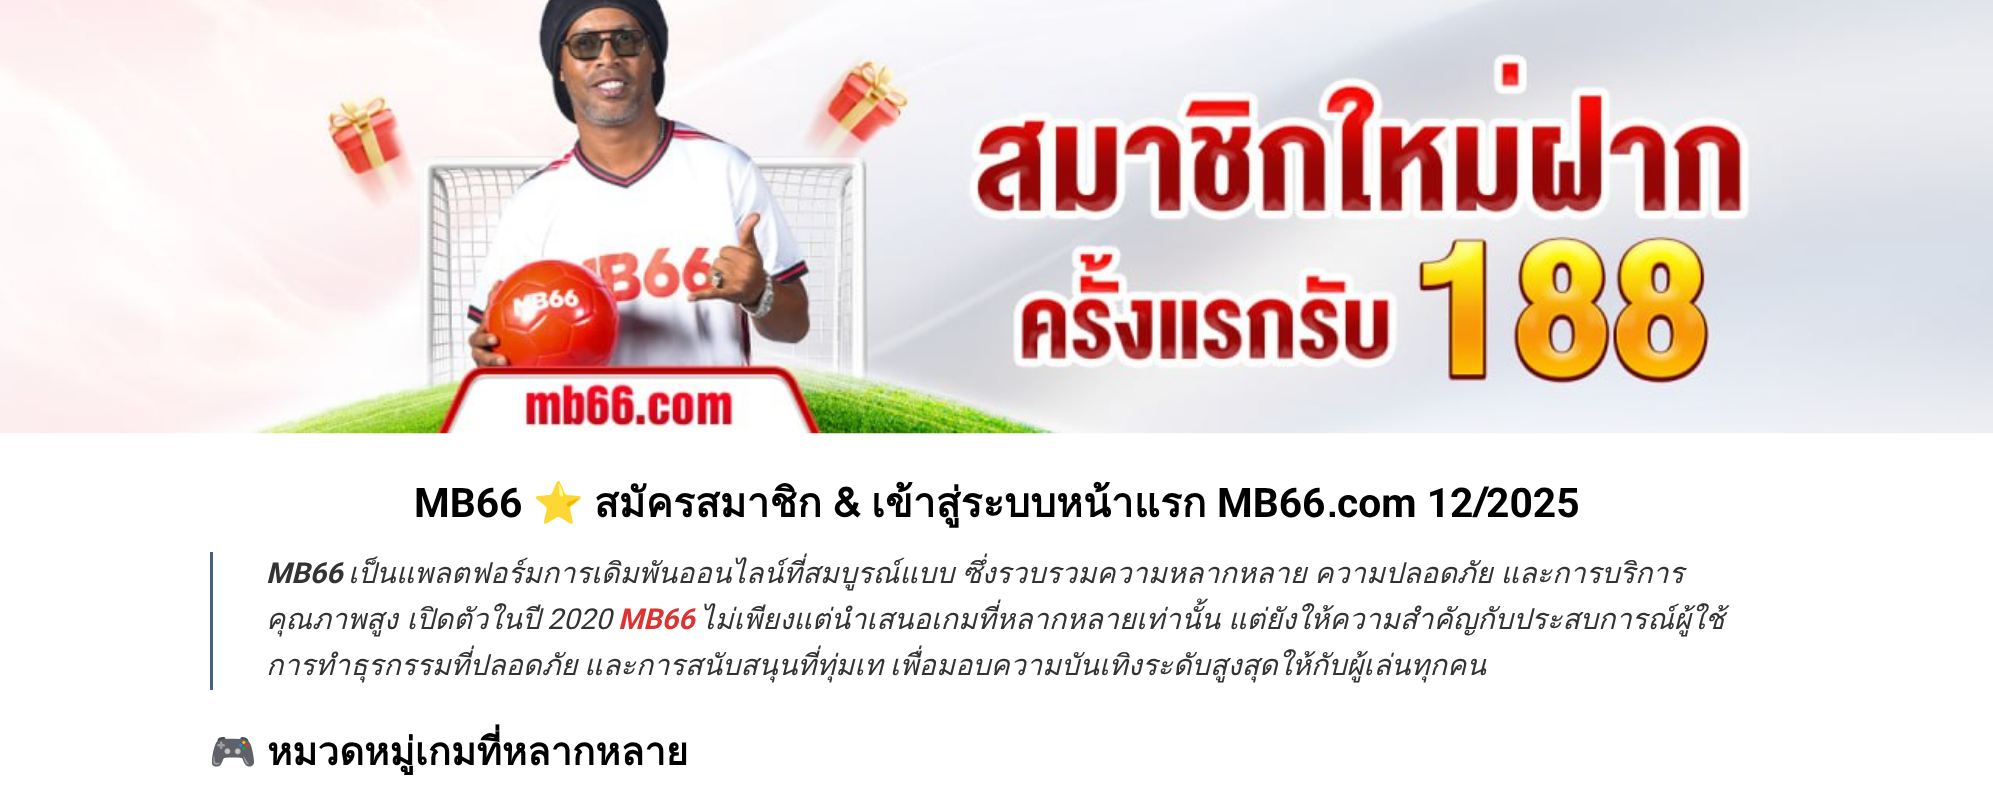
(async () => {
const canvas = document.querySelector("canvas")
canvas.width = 1993
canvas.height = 811
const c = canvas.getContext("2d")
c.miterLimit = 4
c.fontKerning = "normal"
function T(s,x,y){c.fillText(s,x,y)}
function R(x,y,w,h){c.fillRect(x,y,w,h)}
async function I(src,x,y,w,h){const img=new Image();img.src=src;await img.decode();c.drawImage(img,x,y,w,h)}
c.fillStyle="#fff"
R(0,0,1993,811)
await I("1.png",0,0,1993,434)
c.font="bold 40.75px Roboto"
c.fillStyle="#000"
T("MB66",414,517)
c.font="bold 40.75px Noto Color Emoji"
T("⭐️",533,517)
c.font="bold 40.75px Loma"
T("สมัครสมาชิก",594,517)
T("&",833,517)
T("เข้าสู่ระบบหน้าแรก",871,517)
c.font="bold 40.75px Roboto"
T("MB66",1217,517)
c.font="bold 40.75px Loma"
T(".",1326,517)
c.font="bold 40.75px Roboto"
T("com 12",1337,517)
c.font="bold 40.75px Loma"
T("/",1474,517)
c.font="bold 40.75px Roboto"
T("2025",1486,517)
c.fillStyle="#446084"
R(210,552,3,138)
c.font="italic bold 28.8px Roboto"
c.fillStyle="#333"
T("MB66",266,583)
c.wordSpacing="-2px"
c.font="italic 28.8px Loma"
T("เป็นแพลตฟอร์มการเดิมพันออนไลน์ที่สมบูรณ์แบบ ซึ่งรวบรวมความหลากหลาย ความปลอดภัย และการบริการ",348,583)
c.wordSpacing="-1px"
T("คุณภาพสูง เปิดตัวในปี",266,629)
c.wordSpacing="0px"
c.font="italic 28.8px Roboto"
T("2020",547,629)
c.font="italic bold 28.8px Roboto"
c.fillStyle="#d33"
T("MB66",618,629)
c.wordSpacing="-2px"
c.font="italic 28.8px Loma"
c.fillStyle="#333"
T("ไม่เพียงแต่นำเสนอเกมที่หลากหลายเท่านั้น แต่ยังให้ความสำคัญกับประสบการณ์ผู้ใช้",700,629)
c.wordSpacing="-3px"
T("การทำธุรกรรมที่ปลอดภัย และการสนับสนุนที่ทุ่มเท เพื่อมอบความบันเทิงระดับสูงสุดให้กับผู้เล่นทุกคน",266,675)
c.wordSpacing="0px"
c.font="bold 38.4px Noto Color Emoji"
c.fillStyle="#000"
T("🎮",209,765)
c.font="bold 38.4px Loma"
T("หมวดหมู่เกมที่หลากหลาย",267,765)
})()
